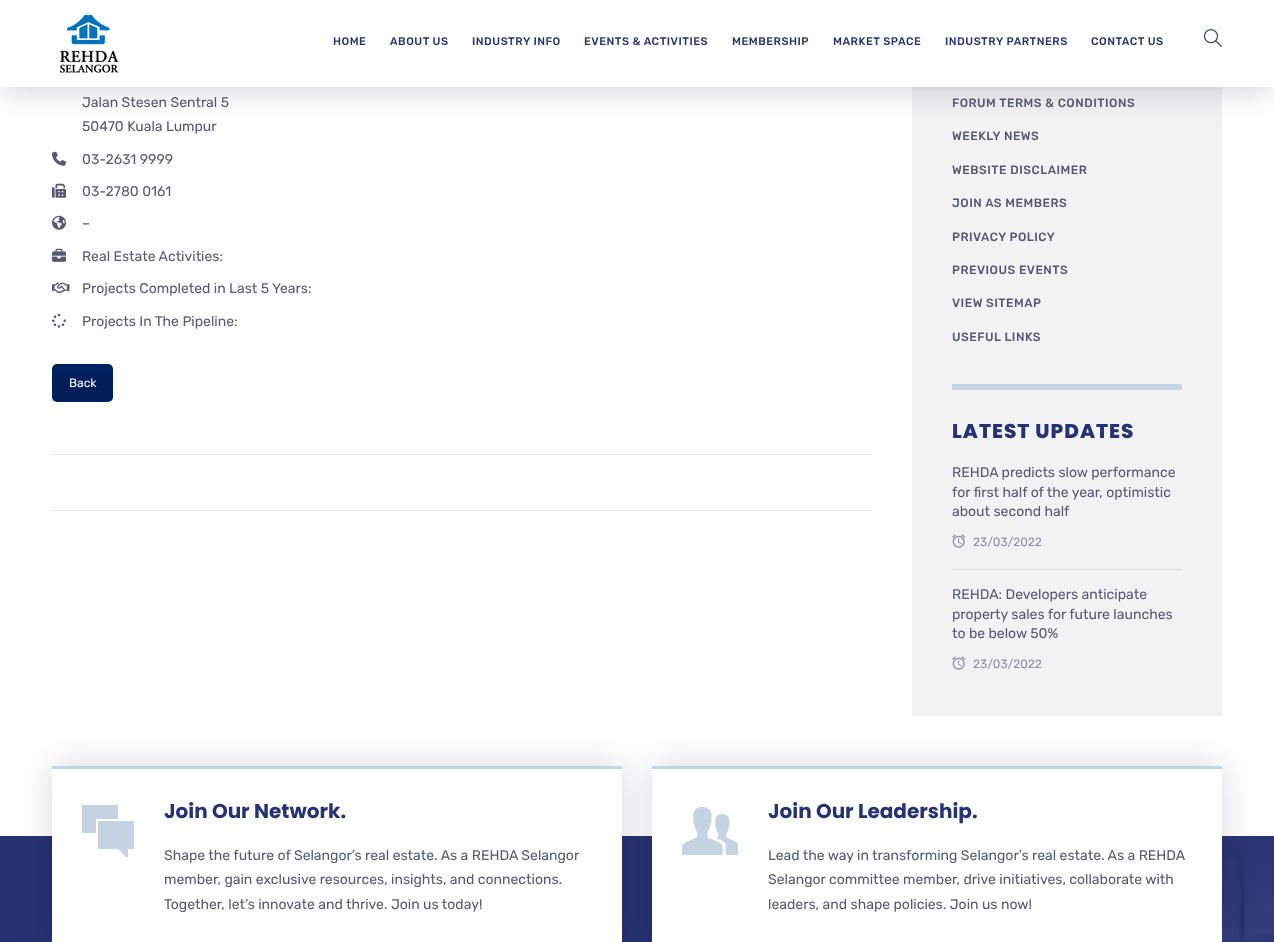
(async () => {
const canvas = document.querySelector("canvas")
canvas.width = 1274
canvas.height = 942
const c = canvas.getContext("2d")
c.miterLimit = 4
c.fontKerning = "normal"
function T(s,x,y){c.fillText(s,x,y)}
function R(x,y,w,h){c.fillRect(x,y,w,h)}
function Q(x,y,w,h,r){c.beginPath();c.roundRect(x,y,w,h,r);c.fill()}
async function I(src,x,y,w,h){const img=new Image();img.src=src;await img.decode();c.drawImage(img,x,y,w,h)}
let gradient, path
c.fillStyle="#fff"
R(0,0,1274,942)
c.fillStyle="#f2f2f3"
R(912,87,310,629)
c.fillStyle="#02062033"
c.filter="blur(17.5px)"
c.beginPath()
c.rect(0,0,1274,87)
c.fill()
c.filter="none"
c.fillStyle="#fff"
R(0,0,1274,87)
await I("1.png",59,14,60,59)
c.letterSpacing="0.5px"
c.font="500 11px Rubik"
c.fillStyle="#273272"
T("HOME",333,45)
T("ABOUT US",390,45)
T("INDUSTRY INFO",472,45)
T("EVENTS & ACTIVITIES",584,45)
T("MEMBERSHIP",732,45)
T("MARKET SPACE",833,45)
T("INDUSTRY PARTNERS",945,45)
T("CONTACT US",1091,45)
await I("2.png",1204,29,18,19)
c.letterSpacing="0px"
c.font="14px Rubik"
c.fillStyle="#565872"
T("Jalan Stesen Sentral 5",82,107)
T("50470 Kuala Lumpur",82,131)
await I("3.png",52,151,14,15)
T("03-2631 9999",82,164)
await I("4.png",52,183,14,15)
T("03-2780 0161",82,196)
await I("5.png",52,215,14,15)
T("–",82,228)
await I("6.png",52,248,14,14)
T("Real Estate Activities:",82,261)
await I("7.png",52,282,18,11)
T("Projects Completed in Last 5 Years:",82,293)
await I("8.png",52,313,14,15)
T("Projects In The Pipeline:",82,326)
c.fillStyle="#002162"
Q(52,364,61,38,5)
c.save()
c.beginPath()
c.roundRect(52,364,61,38,5)
c.clip()
gradient = c.createLinearGradient(112,365,112,401)
gradient.addColorStop(0,"#00000000")
gradient.addColorStop(.5,"#0000001a")
gradient.addColorStop(1,"#0000001a")
c.fillStyle = gradient
R(52,369,61,32)
c.restore()
c.font="12px Rubik"
c.fillStyle="#fff"
T("Back",69,387)
c.fillStyle="#e6e6e9"
R(52,454,820,1)
R(52,510,820,1)
c.fillStyle="#c6d3e3"
R(952,384,230,6)
c.letterSpacing="0.5px"
c.font="500 12px Rubik"
c.fillStyle="#565872"
T("FORUM TERMS & CONDITIONS",952,107)
T("WEEKLY NEWS",952,140)
T("WEBSITE DISCLAIMER",952,174)
T("JOIN AS MEMBERS",952,207)
T("PRIVACY POLICY",952,241)
T("PREVIOUS EVENTS",952,274)
T("VIEW SITEMAP",952,307)
T("USEFUL LINKS",952,341)
c.letterSpacing="1px"
c.font="800 20px Poppins"
c.fillStyle="#273272"
T("LATEST UPDATES",952,438)
c.fillStyle="#dadadb"
R(952,569,230,1)
c.letterSpacing="0px"
c.font="14px Rubik"
c.fillStyle="#565872"
T("REHDA predicts slow performance",952,477)
T("for first half of the year, optimistic",952,497)
T("about second half",952,516)
await I("9.png",952,534,14,14)
c.font="12px Rubik"
c.fillStyle="#8d8ea3"
T("23/03/2022",973,546)
c.font="14px Rubik"
c.fillStyle="#565872"
T("REHDA: Developers anticipate",952,599)
T("property sales for future launches",952,619)
T("to be below 50%",952,638)
await I("9.png",952,656,14,14)
c.font="12px Rubik"
c.fillStyle="#8d8ea3"
T("23/03/2022",973,668)
c.fillStyle="#273272"
R(0,836,1274,106)
await I("10.png",1222,836,52,106)
c.fillStyle="#02062026"
c.filter="blur(17.5px)"
c.beginPath()
c.rect(52,766,570,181)
c.fill()
c.filter="none"
c.fillStyle="#fff"
R(52,769,570,173)
c.fillStyle="#c6d3e3"
R(52,766,570,3)
path = new Path2D("M118 805v14h-22v14h-14v-28zm-20 16h36v28h-6v8h-2l-8-8h-20z")
c.fill(path)
c.font="bold 20px Poppins"
c.fillStyle="#273272"
T("Join Our Network.",164,818)
c.font="14px Rubik"
c.fillStyle="#565872"
T("Shape the future of Selangor’s real estate. As a REHDA Selangor",164,860)
T("member, gain exclusive resources, insights, and connections.",164,884)
T("Together, let’s innovate and thrive. Join us today!",164,909)
c.fillStyle="#02062026"
c.filter="blur(17.5px)"
c.beginPath()
c.rect(652,766,570,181)
c.fill()
c.filter="none"
c.fillStyle="#fff"
R(652,769,570,173)
c.fillStyle="#c6d3e3"
R(652,766,570,3)
await I("11.png",682,807,56,48)
c.font="bold 20px Poppins"
c.fillStyle="#273272"
T("Join Our Leadership.",768,818)
c.font="14px Rubik"
c.fillStyle="#565872"
T("Lead the way in transforming Selangor’s real estate. As a REHDA",768,860)
T("Selangor committee member, drive initiatives, collaborate with",768,884)
T("leaders, and shape policies. Join us now!",768,909)
})()
